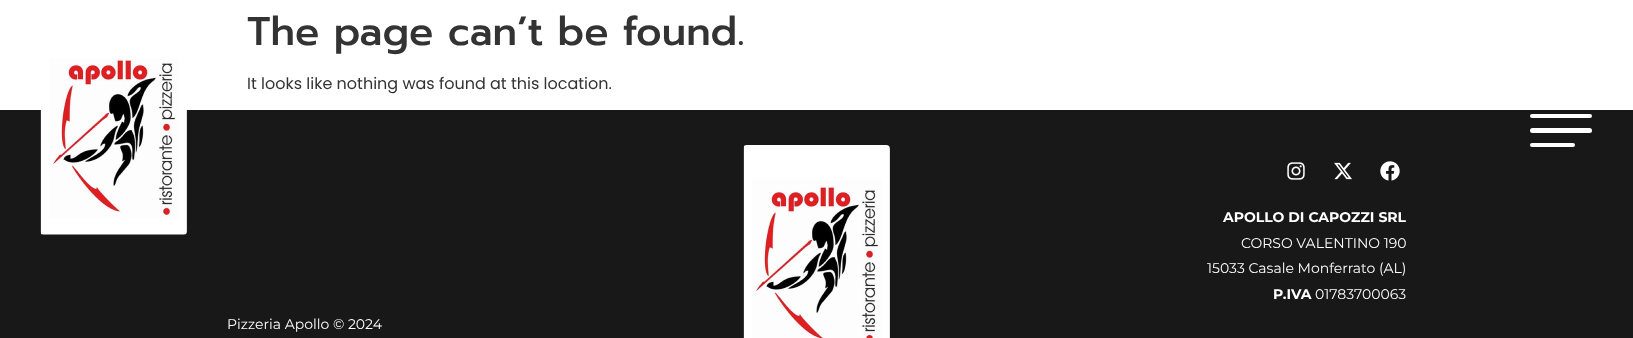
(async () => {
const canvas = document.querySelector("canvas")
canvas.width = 1633
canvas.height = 338
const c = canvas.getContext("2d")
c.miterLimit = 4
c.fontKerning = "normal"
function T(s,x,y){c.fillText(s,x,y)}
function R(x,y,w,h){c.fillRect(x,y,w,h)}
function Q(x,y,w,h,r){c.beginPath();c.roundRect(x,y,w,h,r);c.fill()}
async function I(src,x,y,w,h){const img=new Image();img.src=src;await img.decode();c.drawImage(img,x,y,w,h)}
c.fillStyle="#fff"
R(0,0,1633,338)
c.font="500 40px Prompt"
c.fillStyle="#333"
T("The page can’t be found.",247,45)
c.font="16px Poppins"
T("It looks like nothing was found at this location.",247,89)
c.fillStyle="#181818"
R(0,110,1633,228)
await I("1.png",40,59,147,176)
c.fillStyle="#fff"
Q(1530,114,62,4,2)
Q(1530,128,62,5,2.5)
Q(1530,143,45,4,2)
await I("2.png",743,145,147,193)
await I("3.png",1287,162,18,18)
await I("4.png",1334,162,18,18)
await I("5.png",1380,161,20,20)
c.font="bold 14px Montserrat"
T("APOLLO DI CAPOZZI SRL",1223,222)
c.font="14px Montserrat"
T("CORSO VALENTINO 190",1241,248)
T("15033 Casale Monferrato (AL)",1207,273)
c.font="bold 14px Montserrat"
T("P.IVA",1273,299)
c.font="14px Montserrat"
T("01783700063",1315,299)
T("Pizzeria Apollo © 2024",227,329)
})()
